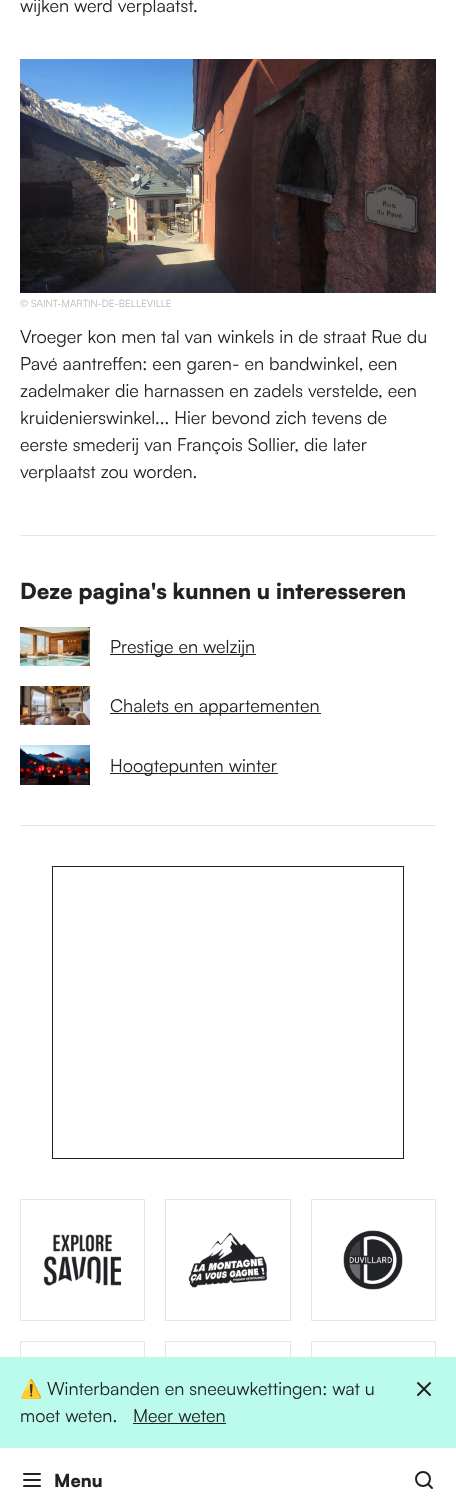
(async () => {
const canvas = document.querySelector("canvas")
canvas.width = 456
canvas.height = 1512
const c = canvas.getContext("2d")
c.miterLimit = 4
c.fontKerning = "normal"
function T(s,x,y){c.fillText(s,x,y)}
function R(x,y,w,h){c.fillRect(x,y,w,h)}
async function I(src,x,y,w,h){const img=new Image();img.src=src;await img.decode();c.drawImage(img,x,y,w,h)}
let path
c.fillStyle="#fff"
R(0,0,456,1512)
c.font="18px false"
c.fillStyle="#212225"
T("wijken werd verplaatst.",20,12)
await I("1.png",20,59,416,234)
c.font="10px false"
c.fillStyle="#b9b9b9"
T("© SAINT-MARTIN-DE-BELLEVILLE",20,307)
c.font="18px false"
c.fillStyle="#212225"
T("Vroeger kon men tal van winkels in de straat Rue du",20,343)
T("Pavé aantreffen: een garen- en bandwinkel, een",20,370)
T("zadelmaker die harnassen en zadels verstelde, een",20,397)
T("kruidenierswinkel... Hier bevond zich tevens de",20,424)
T("eerste smederij van François Sollier, die later",20,451)
T("verplaatst zou worden.",20,478)
c.fillStyle="#e5e5e5"
R(20,535,416,1)
c.font="900 22px Satoshi"
c.fillStyle="#212225"
T("Deze pagina's kunnen u interesseren",20,599)
await I("2.png",20,627,70,39)
R(110,654,146,1)
c.font="18px false"
T("Prestige en welzijn",110,653)
await I("3.png",20,686,70,39)
R(110,713,211,1)
T("Chalets en appartementen",110,712)
await I("4.png",20,745,70,40)
R(110,773,168,1)
T("Hoogtepunten winter",110,772)
c.fillStyle="#e5e5e5"
R(20,825,416,1)
c.strokeStyle="#212225"
c.strokeRect(52.5,866.5,351,292)
c.strokeStyle="#e5e5e5"
c.strokeRect(20.5,1199.5,124,121)
await I("5.png",43,1234,78,52)
c.strokeRect(165.5,1199.5,125,121)
await I("6.png",188,1232,80,56)
c.strokeRect(311.5,1199.5,124,121)
await I("7.png",343,1230,60,60)
c.strokeRect(20.5,1341.5,124,121)
c.strokeRect(165.5,1341.5,125,121)
c.strokeRect(311.5,1341.5,124,121)
c.fillStyle="#bbfbec"
R(0,1357,456,91)
c.font="18px Noto Color Emoji"
c.fillStyle="#212225"
T("⚠️",20,1395)
c.font="18px false"
T("Winterbanden en sneeuwkettingen: wat u",47,1395)
T("moet weten.",20,1422)
T("Meer weten",133,1422)
R(133,1423,93,1)
path = new Path2D("M430 1383l-12 12m0-12l12 12")
c.strokeStyle="#212225"
c.lineWidth=2
c.lineCap="round"
c.lineJoin="round"
c.stroke(path)
c.fillStyle="#fff"
R(20,1448,416,15)
path = new Path2D("M24 1474h16m-16 6h16m-16 6h16")
c.stroke(path)
c.font="900 18px Satoshi"
c.fillStyle="#212225"
T("Menu",54,1487)
c.beginPath()
c.arc(423,1479,7,0,7)
c.stroke()
path = new Path2D("M432 1488l-4-4")
c.stroke(path)
})()
